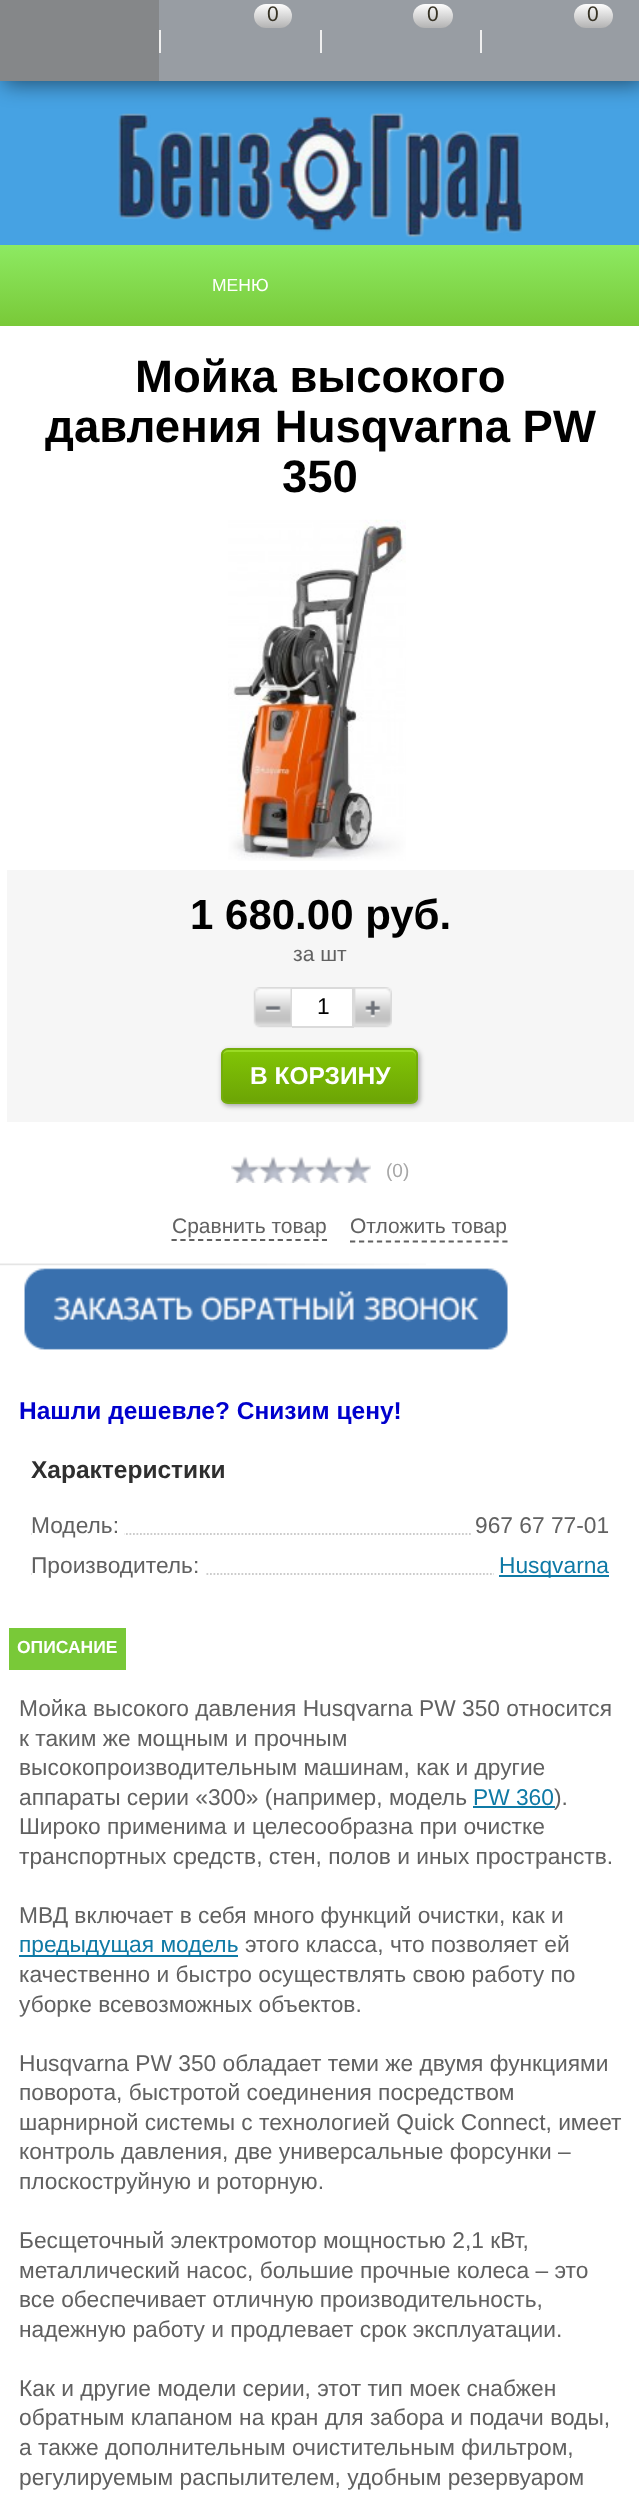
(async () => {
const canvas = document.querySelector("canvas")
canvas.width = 639
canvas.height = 2498
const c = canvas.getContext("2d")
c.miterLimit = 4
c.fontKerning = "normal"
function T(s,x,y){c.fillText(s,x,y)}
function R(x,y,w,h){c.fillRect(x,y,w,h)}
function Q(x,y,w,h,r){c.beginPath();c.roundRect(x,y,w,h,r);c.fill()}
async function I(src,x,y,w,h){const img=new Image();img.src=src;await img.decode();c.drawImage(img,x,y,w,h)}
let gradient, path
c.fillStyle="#46a2e3"
R(0,0,639,2498)
await I("1.png",117,112,406,126)
c.fillStyle="#00000082"
c.filter="blur(10.5px)"
c.beginPath()
c.rect(4,4,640,80)
c.fill()
c.filter="none"
c.fillStyle="#989da3"
R(159,0,480,81)
c.fillStyle="#858789"
R(0,0,159,81)
c.fillStyle="#efefef"
R(159,30,2,23)
gradient = c.createLinearGradient(273,3.5,273,28)
gradient.addColorStop(0,"#fff")
gradient.addColorStop(1,"#b3b3b3")
c.fillStyle = gradient
Q(254,4,38,24,12)
c.font="21px Liberation Sans"
c.fillStyle="#363224"
T("0",267,21)
c.fillStyle="#efefef"
R(320,30,2,23)
gradient = c.createLinearGradient(433,3.5,433,28)
gradient.addColorStop(0,"#fff")
gradient.addColorStop(1,"#b3b3b3")
c.fillStyle = gradient
Q(413,4,40,24,12)
c.fillStyle="#363224"
T("0",427,21)
c.fillStyle="#efefef"
R(480,30,2,23)
gradient = c.createLinearGradient(593,3.5,593,28)
gradient.addColorStop(0,"#fff")
gradient.addColorStop(1,"#b3b3b3")
c.fillStyle = gradient
Q(574,4,39,24,12)
c.fillStyle="#363224"
T("0",587,21)
gradient = c.createLinearGradient(320,245,320,326)
gradient.addColorStop(0,"#8dea62")
gradient.addColorStop(1,"#79c938")
c.fillStyle = gradient
R(0,245,639,81)
c.font="17.5px Liberation Sans"
c.fillStyle="#fff"
T("МЕНЮ",212,291)
R(0,326,639,2172)
c.font="bold 45.5px Liberation Sans"
c.fillStyle="#000"
T("Мойка высокого",135,392)
T("давления Husqvarna PW",45,442)
T("350",282,492)
await I("2.png",228,519,178,342)
c.fillStyle="#f6f6f6"
R(7,870,627,252)
c.font="bold 42px Liberation Sans"
c.fillStyle="#000"
T("1 680.00 руб.",190,929)
c.font="21px Liberation Sans"
c.fillStyle="#616161"
T("за шт",293,961)
await I("3.png",253,987,39,41)
c.fillStyle="#fff"
R(292,989,60,37)
c.fillStyle="#dadada"
R(292,987,62,2)
R(352,987,2,40)
R(292,1026,62,2)
c.font="22.75px Liberation Sans"
c.fillStyle="#000"
T("1",317,1014)
await I("4.png",354,987,38,41)
c.fillStyle="#00000052"
c.filter="blur(2.5px)"
c.beginPath()
c.roundRect(222,1050,198,56,7)
c.fill()
c.filter="none"
c.save()
c.beginPath()
c.roundRect(221,1048,197,56,7)
c.clip()
gradient = c.createLinearGradient(319,1050,319,1103)
gradient.addColorStop(0,"#82c506")
gradient.addColorStop(1,"#6ca405")
c.fillStyle = gradient
R(221,1050,197,53)
c.restore()
c.fillStyle="#9bdb25"
path = new Path2D("M228 1052h183c3 0 5 2 5 5v42l-1 3c1-1 2-3 2-4v-43c0-3-2-5-5-5h-185c-3 0-5 2-5 5v2c0-3 3-5 6-5z")
c.fill(path)
c.beginPath()
c.roundRect(222,1049,195,54,6)
c.strokeStyle="#74ad0c"
c.lineWidth=2
c.stroke()
c.font="bold 24.5px Liberation Sans"
c.fillStyle="#fff"
T("В КОРЗИНУ",250,1084)
await I("5.png",231,1156,140,27)
c.font="19px Liberation Sans"
c.fillStyle="#a7a7a7"
T("(0)",386,1177)
c.font="21px Liberation Sans"
c.fillStyle="#616161"
T("Сравнить товар",172,1233)
path = new Path2D("M171.5 1240h155.5")
c.strokeStyle="#616161"
c.lineWidth=1.8
c.setLineDash([5.25,3.6])
c.stroke(path)
path = new Path2D("M350 1241.5h157.5")
c.setLineDash([5.25,3.71])
c.stroke(path)
T("Отложить товар",350,1233)
await I("6.png",0,1263,426,3)
await I("7.png",24,1268,484,82)
c.font="bold 24.5px Liberation Sans"
c.fillStyle="#0000cd"
T("Нашли дешевле? Снизим цену!",19,1419)
c.fillStyle="#2f2f2f"
T("Характеристики",31,1478)
path = new Path2D("M31.5 1534h577.5")
c.strokeStyle="#ccc"
c.setLineDash([1.75,1.75])
c.stroke(path)
c.fillStyle="#fff"
R(32,1533,92,2)
c.font="22.75px Liberation Sans"
c.fillStyle="#616161"
T("Модель:",31,1533)
c.fillStyle="#fff"
R(472,1533,136,2)
c.fillStyle="#616161"
T("967 67 77-01",475,1533)
path = new Path2D("M31.5 1574h577.5")
c.stroke(path)
c.fillStyle="#fff"
R(32,1573,173,2)
c.fillStyle="#616161"
T("Производитель:",31,1573)
c.fillStyle="#fff"
R(494,1573,114,2)
c.fillStyle="#0f7aa6"
R(499,1575,110,2)
T("Husqvarna",499,1573)
c.fillStyle="#79c938"
R(9,1628,117,42)
c.font="bold 17.5px Liberation Sans"
c.fillStyle="#fff"
T("ОПИСАНИЕ",17,1653)
c.font="22.75px Liberation Sans"
c.fillStyle="#616161"
T("Мойка высокого давления Husqvarna PW 350 относится",19,1716)
T("к таким же мощным и прочным",19,1746)
T("высокопроизводительным машинам, как и другие",19,1775)
T("аппараты серии «300» (например, модель",19,1805)
c.fillStyle="#0f7aa6"
T("PW 360",473,1805)
R(473,1806,82,2)
c.fillStyle="#616161"
T(").",554,1805)
T("Широко применима и целесообразна при очистке",19,1834)
T("транспортных средств, стен, полов и иных пространств.",19,1864)
T("МВД включает в себя много функций очистки, как и",19,1923)
c.fillStyle="#0f7aa6"
R(19,1955,219,2)
T("предыдущая модель",19,1952)
c.fillStyle="#616161"
T("этого класса, что позволяет ей",245,1952)
T("качественно и быстро осуществлять свою работу по",19,1982)
T("уборке всевозможных объектов.",19,2012)
T("Husqvarna PW 350 обладает теми же двумя функциями",19,2071)
T("поворота, быстротой соединения посредством",19,2100)
T("шарнирной системы с технологией Quick Connect, имеет",19,2130)
T("контроль давления, две универсальные форсунки –",19,2159)
T("плоскоструйную и роторную.",19,2189)
T("Бесщеточный электромотор мощностью 2,1 кВт,",19,2248)
T("металлический насос, большие прочные колеса – это",19,2278)
T("все обеспечивает отличную производительность,",19,2307)
T("надежную работу и продлевает срок эксплуатации.",19,2337)
T("Как и другие модели серии, этот тип моек снабжен",19,2396)
T("обратным клапаном на кран для забора и подачи воды,",19,2425)
T("а также дополнительным очистительным фильтром,",19,2455)
T("регулируемым распылителем, удобным резервуаром",19,2485)
})()
